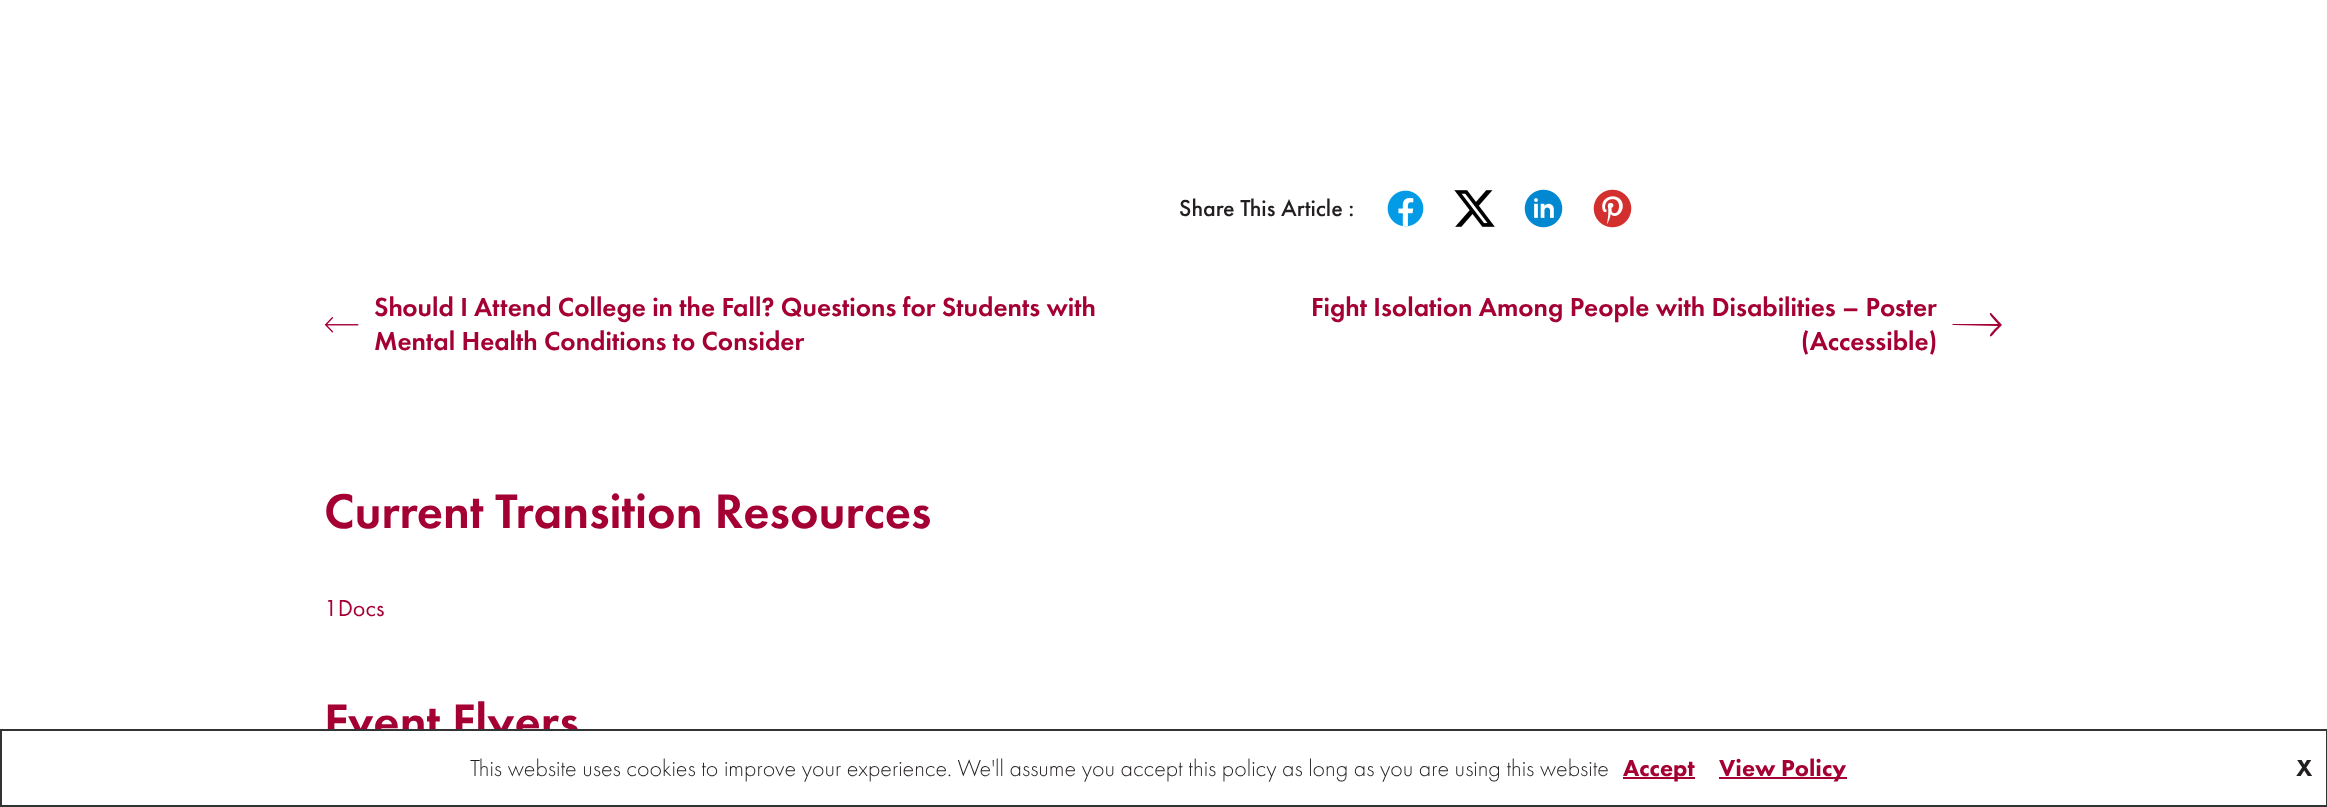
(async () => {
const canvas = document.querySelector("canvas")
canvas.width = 2327
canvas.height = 807
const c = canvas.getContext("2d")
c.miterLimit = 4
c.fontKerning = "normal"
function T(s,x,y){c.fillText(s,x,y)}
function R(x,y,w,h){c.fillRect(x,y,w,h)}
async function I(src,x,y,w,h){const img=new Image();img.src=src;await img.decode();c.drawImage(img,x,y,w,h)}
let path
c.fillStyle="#fff"
R(0,0,2327,807)
c.font="500 24px Futura PT"
c.fillStyle="#231f20"
T("Share This Article :",1179,216)
await I("1.png",1387,190,37,37)
await I("2.png",1454,190,41,37)
await I("3.png",1524,189,39,39)
await I("4.png",1593,189,39,39)
c.font="500 27px 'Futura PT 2'"
c.fillStyle="#a50034"
T("Should I Attend College in the Fall? Questions for Students with",374,316)
await I("5.png",324,317,35,16)
T("Mental Health Conditions to Consider",374,350)
T("Fight Isolation Among People with Disabilities – Poster",1311,316)
path = new Path2D("M1991 313c-4 0 3 6 7 11h-45c-1 0-1 1 0 1l45 1c-1 1-9 8-8 10c1 2 5-4 5-4l7-7z")
c.fill(path)
T("(Accessible)",1801,350)
c.font="500 50.4px 'Futura PT 2'"
T("Current Transition Resources",324,528)
c.font="24px Futura PT"
T("1Docs",324,616)
c.font="500 50.4px 'Futura PT 2'"
T("Event Flyers",324,738)
c.fillStyle="#fff"
R(327,731,251,19)
c.strokeStyle="#333"
c.lineWidth=2
c.strokeRect(1,730,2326,76)
c.font="300 24px Futura PT"
c.fillStyle="#231f20"
T("This website uses cookies to improve your experience. We'll assume you accept this policy as long as you are using this website",470,776)
c.fillStyle="#a50034"
R(1623,777,72,2)
c.font="900 24px Futura PT"
T("Accept",1623,776)
R(1719,777,128,2)
T("View Policy",1719,776)
c.fillStyle="#231f20"
T("X",2296,776)
})()
